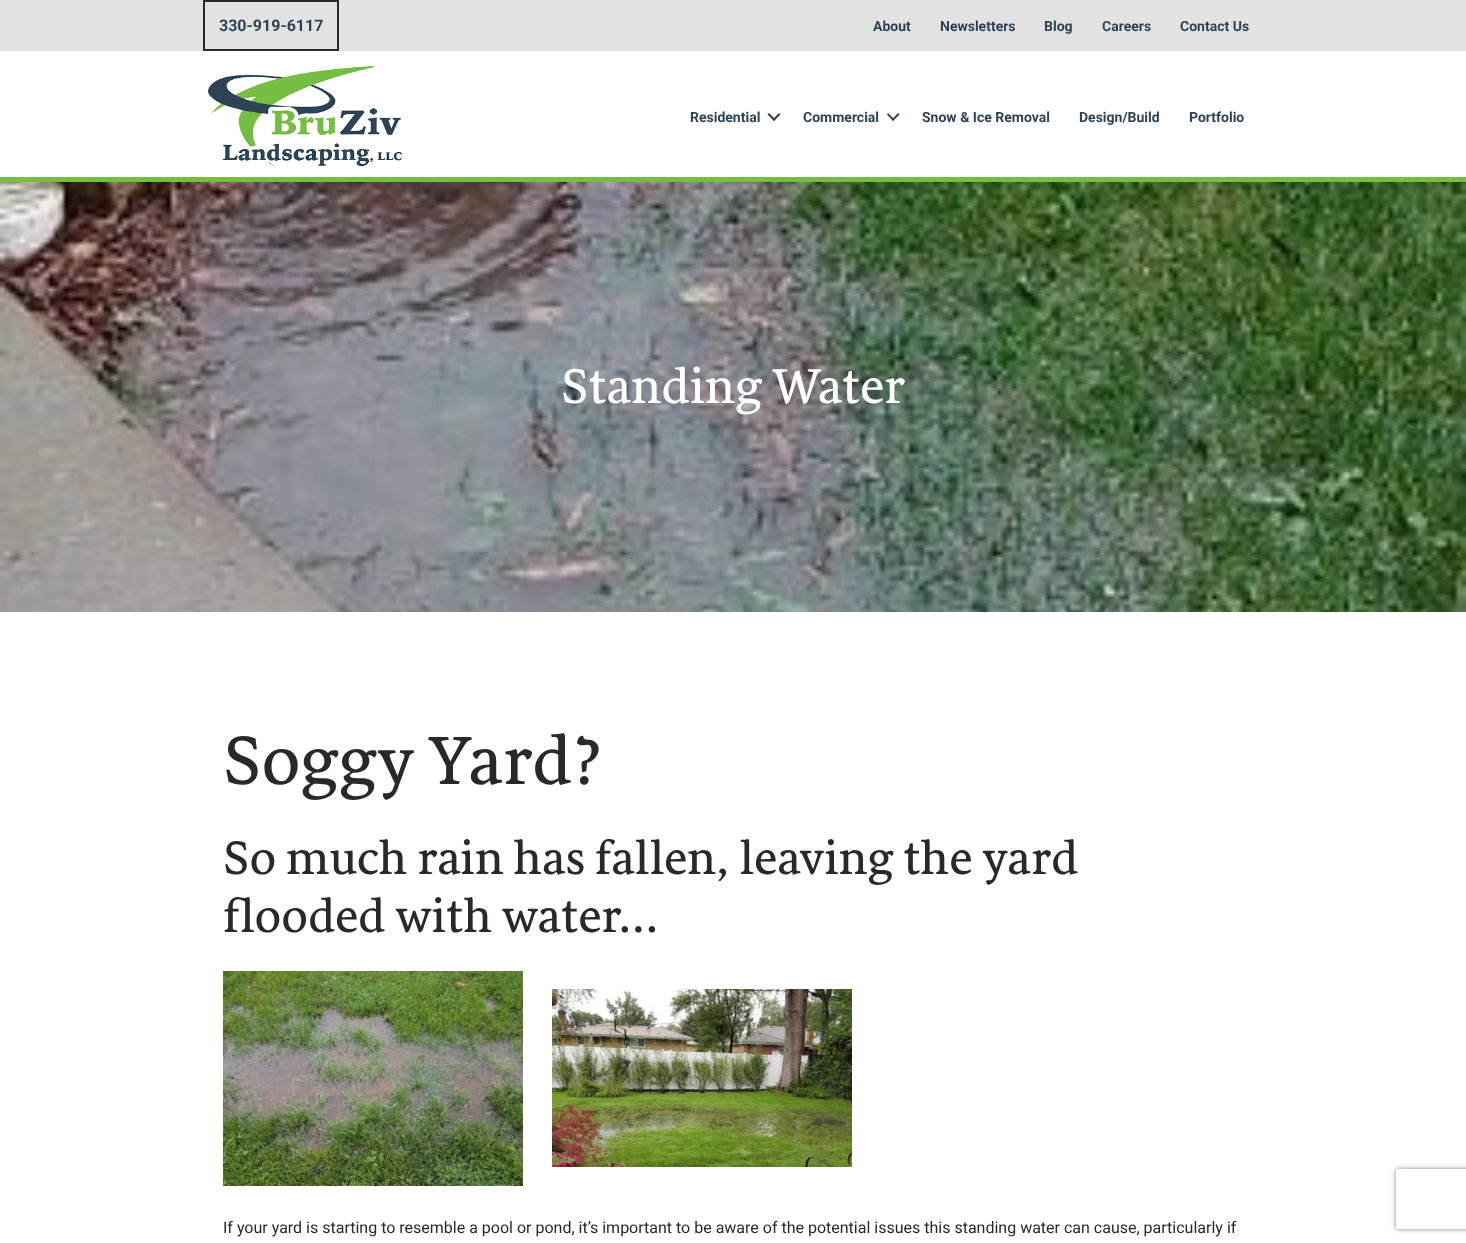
(async () => {
const canvas = document.querySelector("canvas")
canvas.width = 1466
canvas.height = 1243
const c = canvas.getContext("2d")
c.miterLimit = 4
c.fontKerning = "normal"
function T(s,x,y){c.fillText(s,x,y)}
function R(x,y,w,h){c.fillRect(x,y,w,h)}
async function I(src,x,y,w,h){const img=new Image();img.src=src;await img.decode();c.drawImage(img,x,y,w,h)}
let path
c.fillStyle="#fff"
R(0,0,1466,1243)
c.fillStyle="#e2e2e2"
R(0,0,1466,51)
c.strokeStyle="#2a2829"
c.lineWidth=2
c.strokeRect(204,1,134,49)
c.font="bold 16px Roboto"
c.fillStyle="#2e4454"
T("330-919-6117",219,31)
c.font="bold 14px Roboto"
T("About",873,31)
T("Newsletters",940,31)
T("Blog",1044,31)
T("Careers",1102,31)
T("Contact Us",1180,31)
c.fillStyle="#76be43"
R(0,177,1466,5)
await I("1.png",208,66,194,101)
c.fillStyle="#2e4454"
T("Residential",690,122)
path = new Path2D("M779 113l1.5 1.5l-6.5 6.5l-1.5-1.5z")
c.fill(path)
path = new Path2D("M769 113l6.5 6.5l-1.5 1.5l-6.5-6.5z")
c.fill(path)
T("Commercial",803,122)
path = new Path2D("M898 113l1.5 1.5l-6.5 6.5l-1-1.5z")
c.fill(path)
path = new Path2D("M888 113l6.5 6.5l-1.5 1.5l-6-6.5z")
c.fill(path)
T("Snow & Ice Removal",922,122)
T("Design/Build",1079,122)
T("Portfolio",1189,122)
await I("2.png",0,182,1466,430)
c.font="50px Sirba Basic"
c.fillStyle="#fff"
T("Standing Water",561,403)
c.font="70px Sirba Basic"
c.fillStyle="#2a2829"
T("Soggy Yard?",223,784)
c.font="48px Sirba Basic"
T("So much rain has fallen, leaving the yard",223,874)
T("flooded with water…",223,932)
await I("3.png",223,971,300,215)
await I("4.png",552,989,300,178)
c.font="16px Roboto"
T("If your yard is starting to resemble a pool or pond, it’s important to be aware of the potential issues this standing water can cause, particularly if",223,1233)
c.save()
path = new Path2D("M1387 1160h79v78h-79zm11 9h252c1 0 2 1 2 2v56c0 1-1 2-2 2h-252c-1 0-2-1-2-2v-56c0-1 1-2 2-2z")
c.clip(path,"evenodd")
c.fillStyle="#808080"
c.filter="blur(2.5px)"
c.beginPath()
c.roundRect(1396,1169,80,60,2)
c.fill()
c.filter="none"
c.restore()
})()
